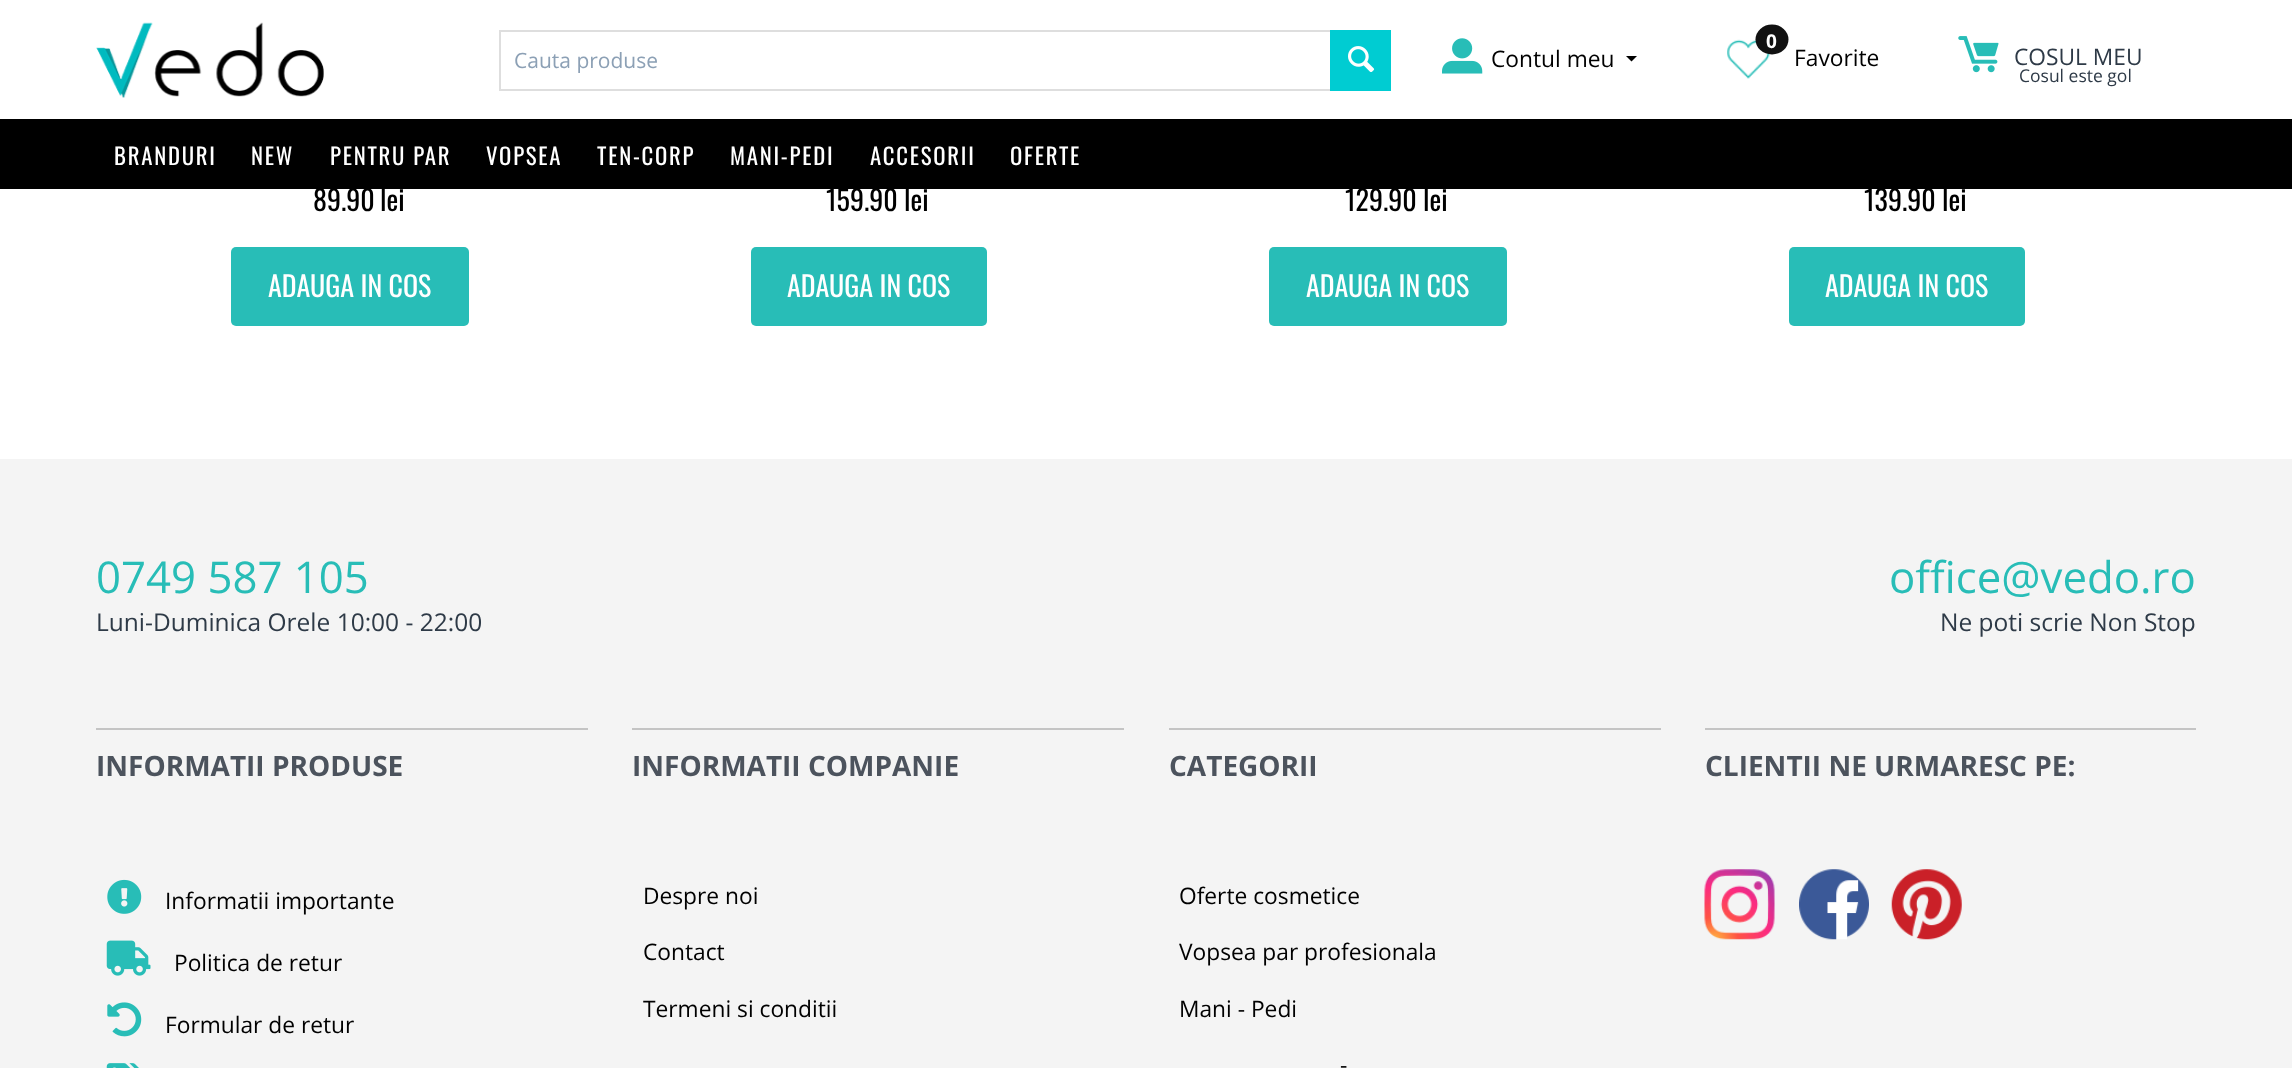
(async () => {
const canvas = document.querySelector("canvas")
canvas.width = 2292
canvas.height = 1068
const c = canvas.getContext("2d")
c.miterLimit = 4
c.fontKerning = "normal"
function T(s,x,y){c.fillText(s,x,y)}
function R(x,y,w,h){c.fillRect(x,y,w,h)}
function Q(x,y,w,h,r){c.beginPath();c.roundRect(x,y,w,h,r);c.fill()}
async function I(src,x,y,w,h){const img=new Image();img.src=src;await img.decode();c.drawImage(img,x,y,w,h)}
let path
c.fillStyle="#fff"
R(0,0,2292,1068)
await I("1.png",96,22,228,76)
c.fillStyle="#dedede"
R(499,30,831,2)
R(499,89,831,2)
R(499,30,2,61)
c.font="21px Open Sans"
c.fillStyle="#8ca0b5"
T("Cauta produse",514,68)
c.fillStyle="#00ccd2"
R(1330,30,61,61)
await I("2.png",1348,46,27,26)
await I("3.png",1442,38,41,36)
c.font="22.75px Open Sans"
c.fillStyle="#000"
T("Contul meu",1491,67)
path = new Path2D("M1631.5 61.5l-5.5-5.5h11z")
c.fill(path)
await I("4.png",1727,39,43,40)
c.fillStyle="#111"
c.beginPath()
c.ellipse(1772,39.5,16.5,15,0,0,7)
c.fill()
c.font="bold 19px Open Sans"
c.fillStyle="#fff"
T("0",1766,48)
c.font="22.75px Open Sans"
c.fillStyle="#000"
T("Favorite",1794,66)
await I("5.png",1958,36,41,37)
c.fillStyle="#2e3a47"
T("COSUL MEU",2014,65)
c.font="17.5px Open Sans"
T("Cosul este gol",2019,82)
c.fillStyle="#000"
R(0,119,2292,70)
c.letterSpacing="1.75px"
c.font="22.75px Oswald"
c.fillStyle="#fff"
T("BRANDURI",114,165)
T("NEW",251,165)
T("PENTRU PAR",330,165)
T("VOPSEA",486,165)
T("TEN-CORP",597,165)
T("MANI-PEDI",730,165)
T("ACCESORII",870,165)
T("OFERTE",1010,165)
c.letterSpacing="0px"
c.font="28px Oswald"
c.fillStyle="#000"
T("89.90",313,211)
T("lei",380,211)
c.fillStyle="#28bdb7"
Q(231,247,238,79,5)
c.fillStyle="#fff"
T("ADAUGA IN COS",268,297)
c.fillStyle="#000"
T("159.90",826,211)
T("lei",904,211)
c.fillStyle="#28bdb7"
Q(751,247,236,79,5)
c.fillStyle="#fff"
T("ADAUGA IN COS",787,297)
c.fillStyle="#000"
T("129.90",1345,211)
T("lei",1423,211)
c.fillStyle="#28bdb7"
Q(1269,247,238,79,5)
c.fillStyle="#fff"
T("ADAUGA IN COS",1306,297)
c.fillStyle="#000"
T("139.90",1864,211)
T("lei",1942,211)
c.fillStyle="#28bdb7"
Q(1789,247,236,79,5)
c.fillStyle="#fff"
T("ADAUGA IN COS",1825,297)
c.fillStyle="#f4f4f4"
R(0,459,2292,609)
c.font="43.75px Open Sans"
c.fillStyle="#28bdb7"
T("0749 587 105",96,593)
c.font="24.5px Open Sans"
c.fillStyle="#2e3a47"
T("Luni-Duminica Orele 10:00 - 22:00",96,631)
c.font="43.75px Open Sans"
c.fillStyle="#28bdb7"
T("office@vedo.ro",1889,593)
c.font="24.5px Open Sans"
c.fillStyle="#2e3a47"
T("Ne poti scrie Non Stop",1940,631)
c.fillStyle="#c4c4c4"
R(96,728,492,2)
c.font="bold 28px Open Sans"
c.fillStyle="#4c535d"
T("INFORMATII PRODUSE",96,776)
await I("6.png",107,879,35,35)
c.font="22.75px Open Sans"
c.fillStyle="#000"
T("Informatii importante",165,909)
await I("7.png",106,940,45,36)
T("Politica de retur",174,971)
await I("8.png",107,1002,35,35)
T("Formular de retur",165,1033)
await I("9.png",106,1063,33,5)
c.fillStyle="#c4c4c4"
R(632,728,492,2)
c.font="bold 28px Open Sans"
c.fillStyle="#4c535d"
T("INFORMATII COMPANIE",632,776)
c.font="22.75px Open Sans"
c.fillStyle="#000"
T("Despre noi",643,904)
T("Contact",643,960)
T("Termeni si conditii",643,1017)
c.fillStyle="#c4c4c4"
R(1169,728,492,2)
c.font="bold 28px Open Sans"
c.fillStyle="#4c535d"
T("CATEGORII",1169,776)
c.font="22.75px Open Sans"
c.fillStyle="#000"
T("Oferte cosmetice",1179,904)
T("Vopsea par profesionala",1179,960)
T("Mani - Pedi",1179,1017)
T("-",1340,1073)
c.fillStyle="#c4c4c4"
R(1705,728,491,2)
c.font="bold 28px Open Sans"
c.fillStyle="#4c535d"
T("CLIENTII NE URMARESC PE:",1705,776)
await I("10.png",1704,869,71,71)
await I("11.png",1799,869,70,71)
await I("12.png",1891,869,71,71)
})()
